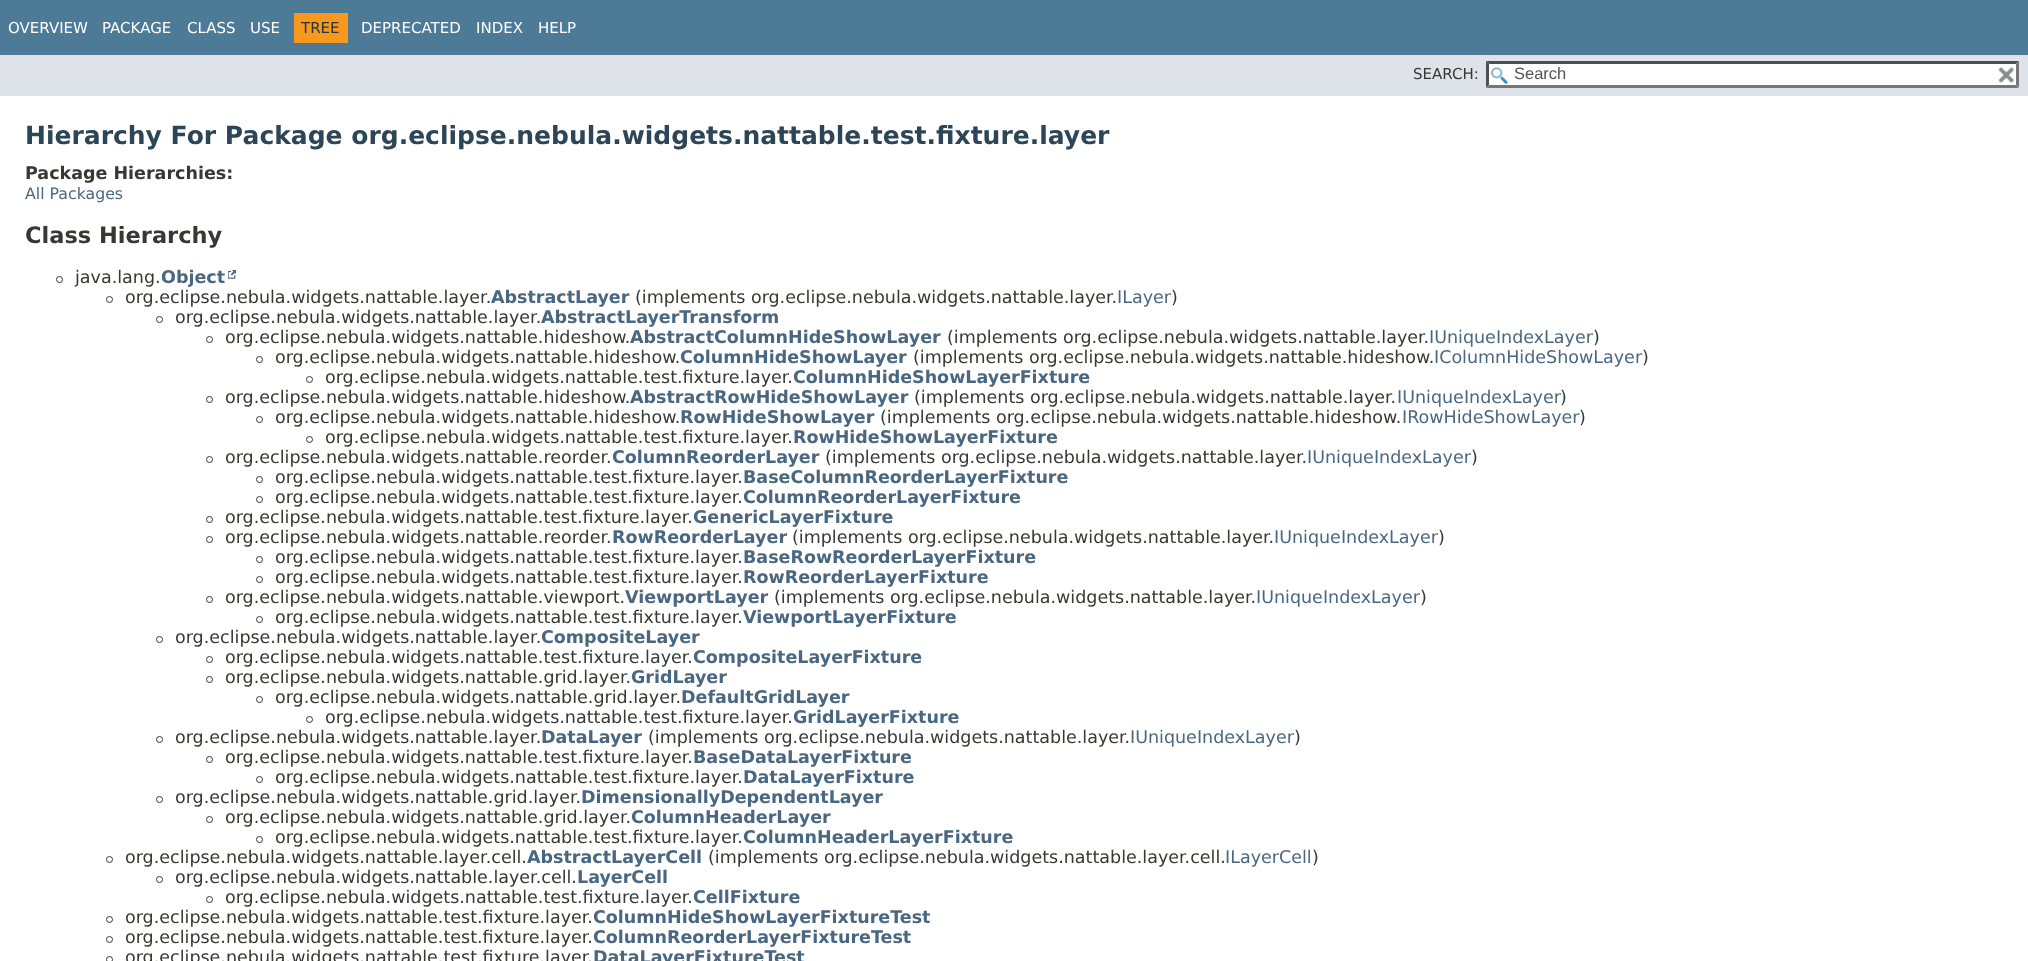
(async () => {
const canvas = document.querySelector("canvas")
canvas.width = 2028
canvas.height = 961
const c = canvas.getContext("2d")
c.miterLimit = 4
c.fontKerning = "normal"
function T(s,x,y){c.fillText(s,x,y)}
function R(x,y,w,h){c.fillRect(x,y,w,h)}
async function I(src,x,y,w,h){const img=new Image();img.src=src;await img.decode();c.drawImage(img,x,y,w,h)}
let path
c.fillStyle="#fff"
R(0,0,2028,961)
c.fillStyle="#4d7a97"
R(0,0,2028,55)
c.font="15px DejaVu Sans"
c.fillStyle="#fff"
T("OVERVIEW",8,33)
T("PACKAGE",102,33)
T("CLASS",187,33)
T("USE",250,33)
c.fillStyle="#f8981d"
R(294,13,54,30)
c.fillStyle="#253441"
T("TREE",301,33)
c.fillStyle="#fff"
T("DEPRECATED",361,33)
T("INDEX",476,33)
T("HELP",538,33)
c.fillStyle="#dee3e9"
R(0,55,2028,41)
c.fillStyle="#353833"
T("SEARCH:",1413,79)
c.fillStyle="#fff"
R(1486,61,533,27)
await I("1.png",1491,67,17,17)
c.fillStyle="#4f4f4f"
path = new Path2D("M1486 61h533l-3 3h-527z")
c.fill(path)
c.fillStyle="#767676"
path = new Path2D("M2019 61v26.5l-3-2.5v-21z")
c.fill(path)
path = new Path2D("M2019 88h-533l3-3h527z")
c.fill(path)
c.fillStyle="#4f4f4f"
path = new Path2D("M1486 87.5v-26.5l3 3v21z")
c.fill(path)
c.font="16.5px Liberation Sans"
c.fillStyle="#545454"
T("Search",1514,79)
await I("2.png",1998,67,16,16)
c.font="bold 25px DejaVu Sans"
c.fillStyle="#2c4557"
T("Hierarchy For Package org.eclipse.nebula.widgets.nattable.test.fixture.layer",25,144)
c.font="bold 17.5px DejaVu Sans"
c.fillStyle="#353833"
T("Package Hierarchies:",25,179)
c.font="15.75px DejaVu Sans"
c.fillStyle="#4a6782"
T("All Packages",25,199)
c.font="bold 22.5px DejaVu Sans"
c.fillStyle="#353833"
T("Class Hierarchy",25,243)
c.beginPath()
c.arc(59.5,279.5,3,0,7)
c.strokeStyle="#353833"
c.stroke()
c.font="17.5px DejaVu Sans"
T("java.lang.",75,283)
c.font="bold 17.5px DejaVu Sans"
c.fillStyle="#4a6782"
T("Object",161,283)
await I("3.png",228,270,8,9)
c.beginPath()
c.arc(109.5,299.5,3,0,7)
c.stroke()
c.font="17.5px DejaVu Sans"
c.fillStyle="#353833"
T("org.eclipse.nebula.widgets.nattable.layer.",125,303)
c.font="bold 17.5px DejaVu Sans"
c.fillStyle="#4a6782"
T("AbstractLayer",491,303)
c.font="17.5px DejaVu Sans"
c.fillStyle="#353833"
T("(implements org.eclipse.nebula.widgets.nattable.layer.",635,303)
c.fillStyle="#4a6782"
T("ILayer",1117,303)
c.fillStyle="#353833"
T(")",1171,303)
c.beginPath()
c.arc(159.5,319.5,3,0,7)
c.stroke()
T("org.eclipse.nebula.widgets.nattable.layer.",175,323)
c.font="bold 17.5px DejaVu Sans"
c.fillStyle="#4a6782"
T("AbstractLayerTransform",541,323)
c.beginPath()
c.arc(209.5,339.5,3,0,7)
c.stroke()
c.font="17.5px DejaVu Sans"
c.fillStyle="#353833"
T("org.eclipse.nebula.widgets.nattable.hideshow.",225,343)
c.font="bold 17.5px DejaVu Sans"
c.fillStyle="#4a6782"
T("AbstractColumnHideShowLayer",630,343)
c.font="17.5px DejaVu Sans"
c.fillStyle="#353833"
T("(implements org.eclipse.nebula.widgets.nattable.layer.",947,343)
c.fillStyle="#4a6782"
T("IUniqueIndexLayer",1429,343)
c.fillStyle="#353833"
T(")",1593,343)
c.beginPath()
c.arc(259.5,359.5,3,0,7)
c.stroke()
T("org.eclipse.nebula.widgets.nattable.hideshow.",275,363)
c.font="bold 17.5px DejaVu Sans"
c.fillStyle="#4a6782"
T("ColumnHideShowLayer",680,363)
c.font="17.5px DejaVu Sans"
c.fillStyle="#353833"
T("(implements org.eclipse.nebula.widgets.nattable.hideshow.",913,363)
c.fillStyle="#4a6782"
T("IColumnHideShowLayer",1434,363)
c.fillStyle="#353833"
T(")",1642,363)
c.beginPath()
c.arc(309.5,379.5,3,0,7)
c.stroke()
T("org.eclipse.nebula.widgets.nattable.test.fixture.layer.",325,383)
c.font="bold 17.5px DejaVu Sans"
c.fillStyle="#4a6782"
T("ColumnHideShowLayerFixture",793,383)
c.beginPath()
c.arc(209.5,399.5,3,0,7)
c.stroke()
c.font="17.5px DejaVu Sans"
c.fillStyle="#353833"
T("org.eclipse.nebula.widgets.nattable.hideshow.",225,403)
c.font="bold 17.5px DejaVu Sans"
c.fillStyle="#4a6782"
T("AbstractRowHideShowLayer",630,403)
c.font="17.5px DejaVu Sans"
c.fillStyle="#353833"
T("(implements org.eclipse.nebula.widgets.nattable.layer.",914,403)
c.fillStyle="#4a6782"
T("IUniqueIndexLayer",1397,403)
c.fillStyle="#353833"
T(")",1560,403)
c.beginPath()
c.arc(259.5,419.5,3,0,7)
c.stroke()
T("org.eclipse.nebula.widgets.nattable.hideshow.",275,423)
c.font="bold 17.5px DejaVu Sans"
c.fillStyle="#4a6782"
T("RowHideShowLayer",680,423)
c.font="17.5px DejaVu Sans"
c.fillStyle="#353833"
T("(implements org.eclipse.nebula.widgets.nattable.hideshow.",880,423)
c.fillStyle="#4a6782"
T("IRowHideShowLayer",1402,423)
c.fillStyle="#353833"
T(")",1579,423)
c.beginPath()
c.arc(309.5,439.5,3,0,7)
c.stroke()
T("org.eclipse.nebula.widgets.nattable.test.fixture.layer.",325,443)
c.font="bold 17.5px DejaVu Sans"
c.fillStyle="#4a6782"
T("RowHideShowLayerFixture",793,443)
c.beginPath()
c.arc(209.5,459.5,3,0,7)
c.stroke()
c.font="17.5px DejaVu Sans"
c.fillStyle="#353833"
T("org.eclipse.nebula.widgets.nattable.reorder.",225,463)
c.font="bold 17.5px DejaVu Sans"
c.fillStyle="#4a6782"
T("ColumnReorderLayer",612,463)
c.font="17.5px DejaVu Sans"
c.fillStyle="#353833"
T("(implements org.eclipse.nebula.widgets.nattable.layer.",825,463)
c.fillStyle="#4a6782"
T("IUniqueIndexLayer",1307,463)
c.fillStyle="#353833"
T(")",1471,463)
c.beginPath()
c.arc(259.5,479.5,3,0,7)
c.stroke()
T("org.eclipse.nebula.widgets.nattable.test.fixture.layer.",275,483)
c.font="bold 17.5px DejaVu Sans"
c.fillStyle="#4a6782"
T("BaseColumnReorderLayerFixture",743,483)
c.beginPath()
c.arc(259.5,499.5,3,0,7)
c.stroke()
c.font="17.5px DejaVu Sans"
c.fillStyle="#353833"
T("org.eclipse.nebula.widgets.nattable.test.fixture.layer.",275,503)
c.font="bold 17.5px DejaVu Sans"
c.fillStyle="#4a6782"
T("ColumnReorderLayerFixture",743,503)
c.beginPath()
c.arc(209.5,519.5,3,0,7)
c.stroke()
c.font="17.5px DejaVu Sans"
c.fillStyle="#353833"
T("org.eclipse.nebula.widgets.nattable.test.fixture.layer.",225,523)
c.font="bold 17.5px DejaVu Sans"
c.fillStyle="#4a6782"
T("GenericLayerFixture",693,523)
c.beginPath()
c.arc(209.5,539.5,3,0,7)
c.stroke()
c.font="17.5px DejaVu Sans"
c.fillStyle="#353833"
T("org.eclipse.nebula.widgets.nattable.reorder.",225,543)
c.font="bold 17.5px DejaVu Sans"
c.fillStyle="#4a6782"
T("RowReorderLayer",612,543)
c.font="17.5px DejaVu Sans"
c.fillStyle="#353833"
T("(implements org.eclipse.nebula.widgets.nattable.layer.",792,543)
c.fillStyle="#4a6782"
T("IUniqueIndexLayer",1274,543)
c.fillStyle="#353833"
T(")",1438,543)
c.beginPath()
c.arc(259.5,559.5,3,0,7)
c.stroke()
T("org.eclipse.nebula.widgets.nattable.test.fixture.layer.",275,563)
c.font="bold 17.5px DejaVu Sans"
c.fillStyle="#4a6782"
T("BaseRowReorderLayerFixture",743,563)
c.beginPath()
c.arc(259.5,579.5,3,0,7)
c.stroke()
c.font="17.5px DejaVu Sans"
c.fillStyle="#353833"
T("org.eclipse.nebula.widgets.nattable.test.fixture.layer.",275,583)
c.font="bold 17.5px DejaVu Sans"
c.fillStyle="#4a6782"
T("RowReorderLayerFixture",743,583)
c.beginPath()
c.arc(209.5,599.5,3,0,7)
c.stroke()
c.font="17.5px DejaVu Sans"
c.fillStyle="#353833"
T("org.eclipse.nebula.widgets.nattable.viewport.",225,603)
c.font="bold 17.5px DejaVu Sans"
c.fillStyle="#4a6782"
T("ViewportLayer",625,603)
c.font="17.5px DejaVu Sans"
c.fillStyle="#353833"
T("(implements org.eclipse.nebula.widgets.nattable.layer.",774,603)
c.fillStyle="#4a6782"
T("IUniqueIndexLayer",1256,603)
c.fillStyle="#353833"
T(")",1420,603)
c.beginPath()
c.arc(259.5,619.5,3,0,7)
c.stroke()
T("org.eclipse.nebula.widgets.nattable.test.fixture.layer.",275,623)
c.font="bold 17.5px DejaVu Sans"
c.fillStyle="#4a6782"
T("ViewportLayerFixture",743,623)
c.beginPath()
c.arc(159.5,639.5,3,0,7)
c.stroke()
c.font="17.5px DejaVu Sans"
c.fillStyle="#353833"
T("org.eclipse.nebula.widgets.nattable.layer.",175,643)
c.font="bold 17.5px DejaVu Sans"
c.fillStyle="#4a6782"
T("CompositeLayer",541,643)
c.beginPath()
c.arc(209.5,659.5,3,0,7)
c.stroke()
c.font="17.5px DejaVu Sans"
c.fillStyle="#353833"
T("org.eclipse.nebula.widgets.nattable.test.fixture.layer.",225,663)
c.font="bold 17.5px DejaVu Sans"
c.fillStyle="#4a6782"
T("CompositeLayerFixture",693,663)
c.beginPath()
c.arc(209.5,679.5,3,0,7)
c.stroke()
c.font="17.5px DejaVu Sans"
c.fillStyle="#353833"
T("org.eclipse.nebula.widgets.nattable.grid.layer.",225,683)
c.font="bold 17.5px DejaVu Sans"
c.fillStyle="#4a6782"
T("GridLayer",631,683)
c.beginPath()
c.arc(259.5,699.5,3,0,7)
c.stroke()
c.font="17.5px DejaVu Sans"
c.fillStyle="#353833"
T("org.eclipse.nebula.widgets.nattable.grid.layer.",275,703)
c.font="bold 17.5px DejaVu Sans"
c.fillStyle="#4a6782"
T("DefaultGridLayer",681,703)
c.beginPath()
c.arc(309.5,719.5,3,0,7)
c.stroke()
c.font="17.5px DejaVu Sans"
c.fillStyle="#353833"
T("org.eclipse.nebula.widgets.nattable.test.fixture.layer.",325,723)
c.font="bold 17.5px DejaVu Sans"
c.fillStyle="#4a6782"
T("GridLayerFixture",793,723)
c.beginPath()
c.arc(159.5,739.5,3,0,7)
c.stroke()
c.font="17.5px DejaVu Sans"
c.fillStyle="#353833"
T("org.eclipse.nebula.widgets.nattable.layer.",175,743)
c.font="bold 17.5px DejaVu Sans"
c.fillStyle="#4a6782"
T("DataLayer",541,743)
c.font="17.5px DejaVu Sans"
c.fillStyle="#353833"
T("(implements org.eclipse.nebula.widgets.nattable.layer.",648,743)
c.fillStyle="#4a6782"
T("IUniqueIndexLayer",1130,743)
c.fillStyle="#353833"
T(")",1294,743)
c.beginPath()
c.arc(209.5,759.5,3,0,7)
c.stroke()
T("org.eclipse.nebula.widgets.nattable.test.fixture.layer.",225,763)
c.font="bold 17.5px DejaVu Sans"
c.fillStyle="#4a6782"
T("BaseDataLayerFixture",693,763)
c.beginPath()
c.arc(259.5,779.5,3,0,7)
c.stroke()
c.font="17.5px DejaVu Sans"
c.fillStyle="#353833"
T("org.eclipse.nebula.widgets.nattable.test.fixture.layer.",275,783)
c.font="bold 17.5px DejaVu Sans"
c.fillStyle="#4a6782"
T("DataLayerFixture",743,783)
c.beginPath()
c.arc(159.5,799.5,3,0,7)
c.stroke()
c.font="17.5px DejaVu Sans"
c.fillStyle="#353833"
T("org.eclipse.nebula.widgets.nattable.grid.layer.",175,803)
c.font="bold 17.5px DejaVu Sans"
c.fillStyle="#4a6782"
T("DimensionallyDependentLayer",581,803)
c.beginPath()
c.arc(209.5,819.5,3,0,7)
c.stroke()
c.font="17.5px DejaVu Sans"
c.fillStyle="#353833"
T("org.eclipse.nebula.widgets.nattable.grid.layer.",225,823)
c.font="bold 17.5px DejaVu Sans"
c.fillStyle="#4a6782"
T("ColumnHeaderLayer",631,823)
c.beginPath()
c.arc(259.5,839.5,3,0,7)
c.stroke()
c.font="17.5px DejaVu Sans"
c.fillStyle="#353833"
T("org.eclipse.nebula.widgets.nattable.test.fixture.layer.",275,843)
c.font="bold 17.5px DejaVu Sans"
c.fillStyle="#4a6782"
T("ColumnHeaderLayerFixture",743,843)
c.beginPath()
c.arc(109.5,859.5,3,0,7)
c.stroke()
c.font="17.5px DejaVu Sans"
c.fillStyle="#353833"
T("org.eclipse.nebula.widgets.nattable.layer.cell.",125,863)
c.font="bold 17.5px DejaVu Sans"
c.fillStyle="#4a6782"
T("AbstractLayerCell",527,863)
c.font="17.5px DejaVu Sans"
c.fillStyle="#353833"
T("(implements org.eclipse.nebula.widgets.nattable.layer.cell.",708,863)
c.fillStyle="#4a6782"
T("ILayerCell",1225,863)
c.fillStyle="#353833"
T(")",1312,863)
c.beginPath()
c.arc(159.5,879.5,3,0,7)
c.stroke()
T("org.eclipse.nebula.widgets.nattable.layer.cell.",175,883)
c.font="bold 17.5px DejaVu Sans"
c.fillStyle="#4a6782"
T("LayerCell",577,883)
c.beginPath()
c.arc(209.5,899.5,3,0,7)
c.stroke()
c.font="17.5px DejaVu Sans"
c.fillStyle="#353833"
T("org.eclipse.nebula.widgets.nattable.test.fixture.layer.",225,903)
c.font="bold 17.5px DejaVu Sans"
c.fillStyle="#4a6782"
T("CellFixture",693,903)
c.beginPath()
c.arc(109.5,919.5,3,0,7)
c.stroke()
c.font="17.5px DejaVu Sans"
c.fillStyle="#353833"
T("org.eclipse.nebula.widgets.nattable.test.fixture.layer.",125,923)
c.font="bold 17.5px DejaVu Sans"
c.fillStyle="#4a6782"
T("ColumnHideShowLayerFixtureTest",593,923)
c.beginPath()
c.arc(109.5,939.5,3,0,7)
c.stroke()
c.font="17.5px DejaVu Sans"
c.fillStyle="#353833"
T("org.eclipse.nebula.widgets.nattable.test.fixture.layer.",125,943)
c.font="bold 17.5px DejaVu Sans"
c.fillStyle="#4a6782"
T("ColumnReorderLayerFixtureTest",593,943)
c.beginPath()
c.arc(109.5,959.5,3,0,7)
c.stroke()
c.font="17.5px DejaVu Sans"
c.fillStyle="#353833"
T("org.eclipse.nebula.widgets.nattable.test.fixture.layer.",125,963)
c.font="bold 17.5px DejaVu Sans"
c.fillStyle="#4a6782"
T("DataLayerFixtureTest",593,963)
})()
